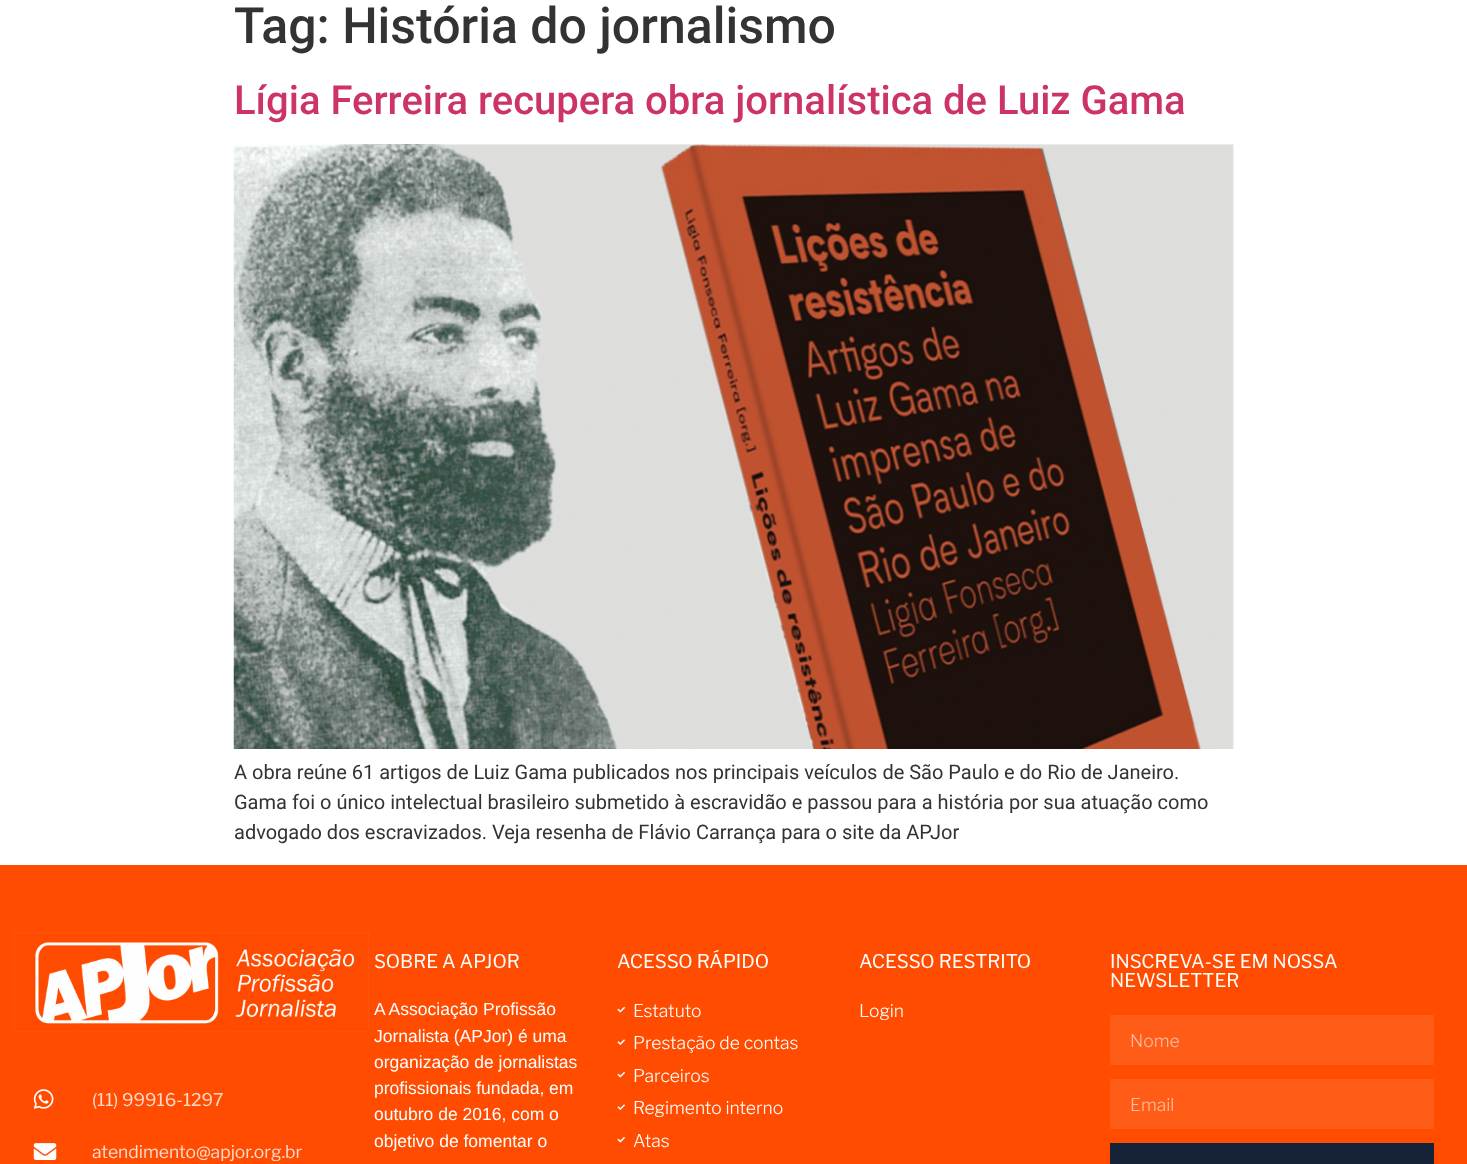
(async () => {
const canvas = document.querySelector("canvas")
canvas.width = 1467
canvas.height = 1164
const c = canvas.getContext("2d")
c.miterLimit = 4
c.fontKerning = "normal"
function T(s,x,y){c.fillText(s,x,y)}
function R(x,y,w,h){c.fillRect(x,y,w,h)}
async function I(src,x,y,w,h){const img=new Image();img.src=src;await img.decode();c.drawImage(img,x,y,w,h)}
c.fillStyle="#fff"
R(0,0,1467,1164)
c.font="500 50px Roboto"
c.fillStyle="#333"
T("Tag: História do jornalismo",234,43)
c.font="500 40px Roboto"
c.fillStyle="#c36"
T("Lígia Ferreira recupera obra jornalística de Luiz Gama",234,114)
await I("1.png",233,144,1001,605)
c.font="20px Roboto"
c.fillStyle="#333"
T("A obra reúne 61 artigos de Luiz Gama publicados nos principais veículos de São Paulo e do Rio de Janeiro.",234,779)
T("Gama foi o único intelectual brasileiro submetido à escravidão e passou para a história por sua atuação como",234,809)
T("advogado dos escravizados. Veja resenha de Flávio Carrança para o site da APJor",234,839)
c.fillStyle="#ff4c00"
R(0,865,1467,299)
c.font="18.75px Libre Franklin"
c.fillStyle="#fff"
T("SOBRE A APJOR",374,968)
c.font="17.5px Liberation Sans"
T("A Associação Profissão",374,1015)
T("Jornalista (APJor) é uma",374,1042)
T("organização de jornalistas",374,1068)
T("profissionais fundada, em",374,1094)
T("outubro de 2016, com o",374,1120)
T("objetivo de fomentar o",374,1147)
c.font="18.75px Libre Franklin"
T("ACESSO RÁPIDO",617,968)
await I("2.png",617,1007,8,6)
c.font="300 17.5px Libre Franklin"
T("Estatuto",633,1017)
await I("3.png",617,1039,8,6)
T("Prestação de contas",633,1049)
await I("2.png",617,1072,8,6)
T("Parceiros",633,1082)
await I("3.png",617,1104,8,6)
T("Regimento interno",633,1114)
await I("2.png",617,1137,8,6)
T("Atas",633,1147)
c.font="18.75px Libre Franklin"
T("ACESSO RESTRITO",859,968)
c.font="300 17.5px Libre Franklin"
T("Login",859,1017)
c.font="18.75px Libre Franklin"
T("INSCREVA-SE EM NOSSA",1110,968)
T("NEWSLETTER",1110,987)
c.fillStyle="#ff5c17"
R(1110,1015,324,50)
c.font="300 17.5px Libre Franklin"
c.fillStyle="#ffbea2"
T("Nome",1130,1047)
c.fillStyle="#ff5c17"
R(1110,1079,324,50)
c.fillStyle="#ffbea2"
T("Email",1130,1111)
c.fillStyle="#162238"
R(1110,1143,324,21)
await I("4.png",13,932,356,100)
await I("5.png",33,1089,21,20)
c.font="17.5px Libre Franklin"
c.fillStyle="#ffdbcc"
T("(11) 99916-1297",92,1106)
await I("6.png",33,1143,24,17)
T("atendimento@apjor.org.br",92,1158)
})()
